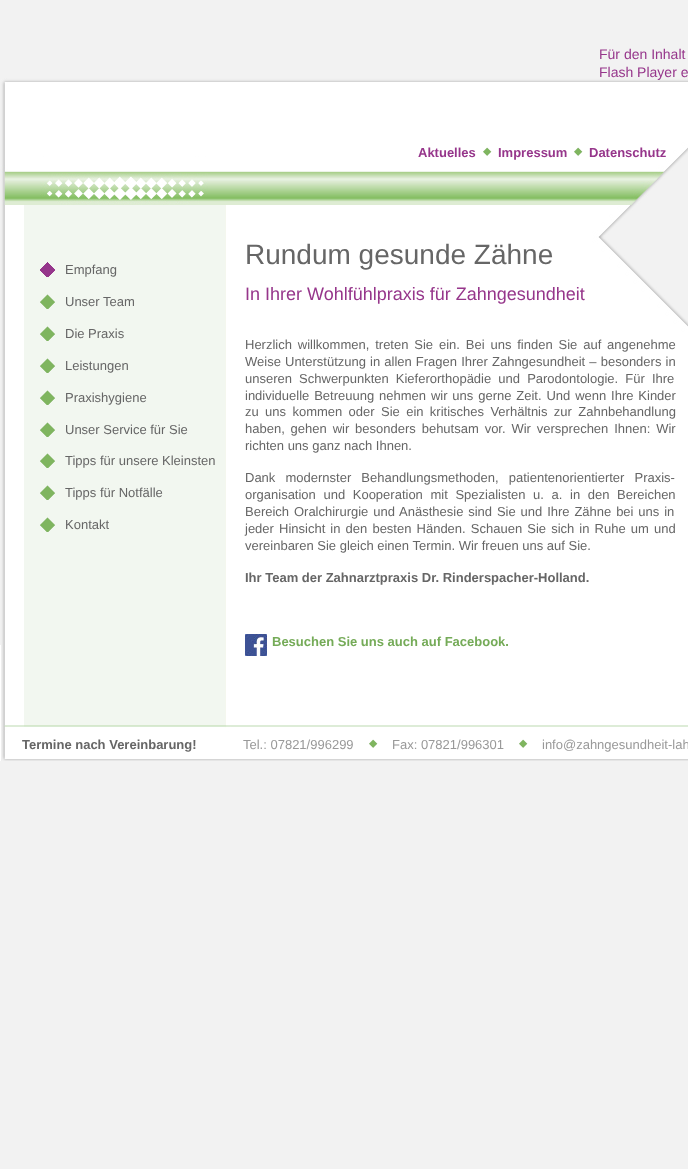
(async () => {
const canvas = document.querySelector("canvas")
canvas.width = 688
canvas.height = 1169
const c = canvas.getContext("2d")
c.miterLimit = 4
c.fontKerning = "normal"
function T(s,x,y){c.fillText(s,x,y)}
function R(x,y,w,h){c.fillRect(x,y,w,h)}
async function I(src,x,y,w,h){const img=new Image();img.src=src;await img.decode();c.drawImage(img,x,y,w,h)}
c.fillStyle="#f2f2f2"
R(0,0,688,1169)
c.fillStyle="#fff"
R(0,645,1,116)
await I("1.png",0,45,688,716)
c.font="14px Liberation Sans"
c.fillStyle="#96368b"
T("Für den Inhalt",599,59)
T("Flash Player e",599,77)
c.font="bold 13px Liberation Sans"
T("Aktuelles",418,157)
await I("2.png",483,147,9,9)
T("Impressum",498,157)
await I("2.png",574,147,9,9)
T("Datenschutz",589,157)
await I("3.png",40,262,15,15)
c.font="13px Liberation Sans"
c.fillStyle="#666"
T("Empfang",65,274)
await I("4.png",40,294,15,15)
T("Unser Team",65,306)
await I("4.png",40,326,15,15)
T("Die Praxis",65,338)
await I("4.png",40,358,15,15)
T("Leistungen",65,370)
await I("4.png",40,390,15,15)
T("Praxishygiene",65,402)
await I("4.png",40,422,15,15)
T("Unser Service für Sie",65,434)
await I("4.png",40,453,15,15)
T("Tipps für unsere Kleinsten",65,465)
await I("4.png",40,485,15,15)
T("Tipps für Notfälle",65,497)
await I("4.png",40,517,15,15)
T("Kontakt",65,529)
c.font="28px Liberation Sans"
T("Rundum gesunde Zähne",245,264)
c.font="18px Liberation Sans"
c.fillStyle="#96368b"
T("In Ihrer Wohlfühlpraxis für Zahngesundheit",245,300)
c.wordSpacing="2.25px"
c.font="13px Liberation Sans"
c.fillStyle="#666"
T("Herzlich willkommen, treten Sie ein. Bei uns finden Sie auf angenehme",245,349)
c.wordSpacing="0.5px"
T("Weise Unterstützung in allen Fragen Ihrer Zahngesundheit – besonders in",245,366)
c.wordSpacing="3.5px"
T("unseren Schwerpunkten Kieferorthopädie und Parodontologie. Für Ihre",245,383)
c.wordSpacing="1.25px"
T("individuelle Betreuung nehmen wir uns gerne Zeit. Und wenn Ihre Kinder",245,400)
c.wordSpacing="2.75px"
T("zu uns kommen oder Sie ein kritisches Verhältnis zur Zahnbehandlung",245,416)
c.wordSpacing="2.25px"
T("haben, gehen wir besonders behutsam vor. Wir versprechen Ihnen: Wir",245,433)
c.wordSpacing="0px"
T("richten uns ganz nach Ihnen.",245,450)
c.wordSpacing="6.5px"
T("Dank modernster Behandlungsmethoden, patientenorientierter Praxis-",245,482)
c.wordSpacing="4px"
T("organisation und Kooperation mit Spezialisten u. a. in den Bereichen",245,499)
c.wordSpacing="1.25px"
T("Bereich Oralchirurgie und Anästhesie sind Sie und Ihre Zähne bei uns in",245,516)
c.wordSpacing="1.5px"
T("jeder Hinsicht in den besten Händen. Schauen Sie sich in Ruhe um und",245,533)
c.wordSpacing="0px"
T("vereinbaren Sie gleich einen Termin. Wir freuen uns auf Sie.",245,550)
c.font="bold 13px Liberation Sans"
T("Ihr Team der Zahnarztpraxis Dr. Rinderspacher-Holland.",245,582)
await I("5.png",245,634,22,22)
c.fillStyle="#75ab58"
T("Besuchen Sie uns auch auf Facebook.",272,646)
await I("6.png",2,725,686,36)
c.fillStyle="#666"
T("Termine nach Vereinbarung!",22,749)
c.font="13px Liberation Sans"
c.fillStyle="#999"
T("Tel.: 07821/996299",243,749)
await I("2.png",369,739,9,9)
T("Fax: 07821/996301",392,749)
await I("2.png",519,739,9,9)
T("info@zahngesundheit-lah",542,749)
})()
